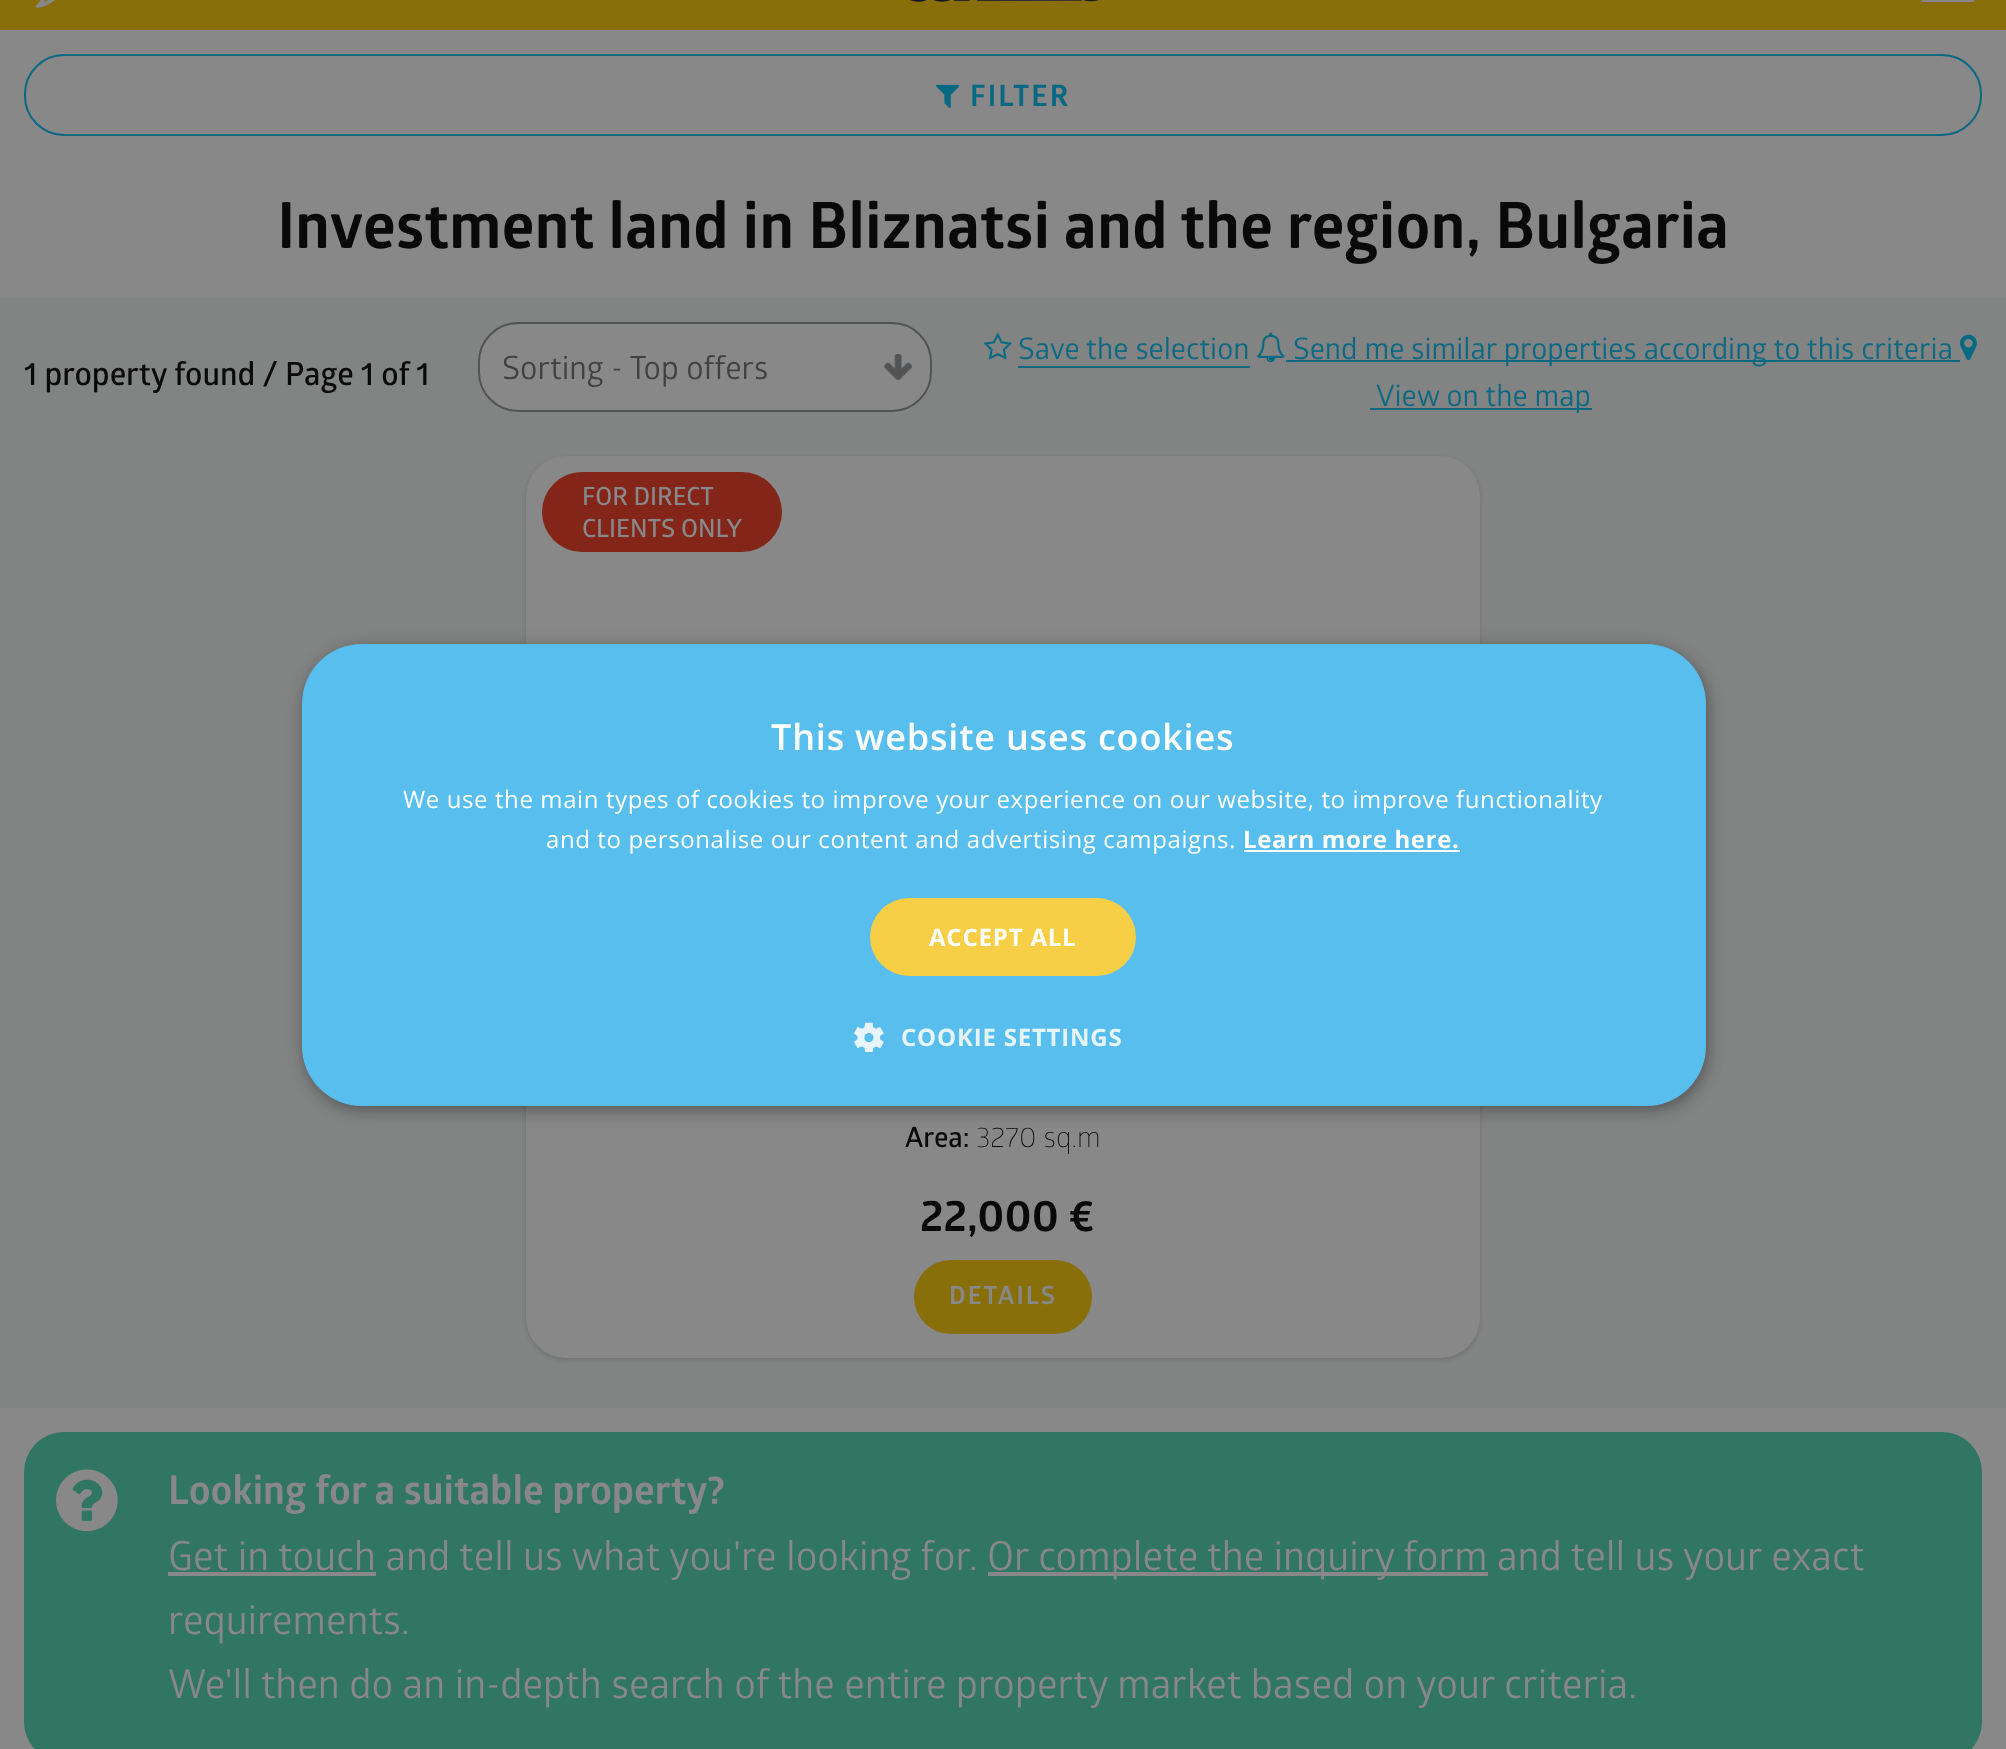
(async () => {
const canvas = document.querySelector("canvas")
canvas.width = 2006
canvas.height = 1749
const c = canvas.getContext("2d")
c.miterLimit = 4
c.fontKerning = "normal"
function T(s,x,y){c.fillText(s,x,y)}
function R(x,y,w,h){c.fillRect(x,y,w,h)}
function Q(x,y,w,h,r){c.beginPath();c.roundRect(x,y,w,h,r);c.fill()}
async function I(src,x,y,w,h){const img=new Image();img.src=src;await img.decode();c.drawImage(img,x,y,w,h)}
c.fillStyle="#888"
R(0,0,2006,1749)
c.fillStyle="#886f0a"
R(0,0,2006,30)
await I("1.png",36,0,19,8)
await I("2.png",910,0,189,2)
c.fillStyle="#826a0a"
R(1922,2,52,2)
c.fillStyle="#888"
R(1922,0,52,2)
c.beginPath()
c.roundRect(25,55,1956,80,39)
c.strokeStyle="#096982"
c.lineWidth=2
c.stroke()
await I("3.png",936,84,24,25)
c.letterSpacing="2px"
c.font="bold 29.6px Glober"
c.fillStyle="#096982"
T("FILTER",970,106)
c.letterSpacing="0px"
c.font="bold 64px Glober"
c.fillStyle="#090909"
T("Investment land in Bliznatsi and the region, Bulgaria",277,248)
c.fillStyle="#828383"
R(0,298,2006,1110)
c.font="600 32px Glober"
c.fillStyle="#090909"
T("1 property found / Page 1 of 1",24,385)
c.fillStyle="#888"
Q(478,322,454,90,40)
await I("4.png",884,354,28,26)
c.beginPath()
c.roundRect(479,323,452,88,39)
c.strokeStyle="#525355"
c.stroke()
c.font="32px Glober"
c.fillStyle="#3f4142"
T("Sorting - Top offers",502,379)
await I("5.png",984,333,28,27)
c.font="29.6px Glober"
c.fillStyle="#096982"
T("Save the selection",1018,359)
R(1018,366,232,2)
await I("6.png",1257,332,28,31)
R(1286,360,674,2)
T("Send me similar properties according to this criteria",1293,359)
await I("7.png",1960,334,17,27)
R(1370,408,222,2)
T("View on the map",1376,406)
c.fillStyle="#09090926"
c.filter="blur(2px)"
c.beginPath()
c.roundRect(526,458,954,902,40)
c.fill()
c.filter="none"
c.fillStyle="#888"
Q(526,456,954,902,40)
c.fillStyle="#832619"
Q(542,472,240,80,40)
c.font="600 25px Glober"
c.fillStyle="#888"
T("FOR DIRECT",582,505)
T("CLIENTS ONLY",582,537)
c.font="600 28px Glober"
c.fillStyle="#090909"
T("Area:",905,1147)
c.font="300 28px Glober"
T("3270 sq.m",976,1147)
c.font="bold 44px Glober"
T("22,000 €",920,1231)
c.fillStyle="#886f0a"
Q(914,1260,178,74,37)
c.letterSpacing="2px"
c.font="bold 25px Glober"
c.fillStyle="#888"
T("DETAILS",949,1304)
c.fillStyle="#317563"
Q(24,1432,1958,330,40)
await I("8.png",56,1469,62,63)
c.letterSpacing="0px"
c.font="bold 40px Glober"
c.fillStyle="#888"
T("Looking for a suitable property?",168,1504)
R(168,1572,208,4)
c.font="40px Glober"
T("Get in touch and tell us what you're looking for.",168,1570)
R(988,1572,500,4)
T("Or complete the inquiry form and tell us your exact",987,1570)
T("requirements.",168,1634)
T("We'll then do an in-depth search of the entire property market based on your criteria.",168,1698)
c.fillStyle="#00000059"
c.filter="blur(8px)"
c.beginPath()
c.roundRect(304,648,1404,462,60)
c.fill()
c.filter="none"
c.fillStyle="#58beee"
Q(302,644,1404,462,60)
c.letterSpacing="0.8px"
c.font="600 36px Open Sans"
c.fillStyle="#fff"
T("This website uses cookies",771,750)
c.letterSpacing="0.6px"
c.font="24px Open Sans"
T("We use the main types of cookies to improve your experience on our website, to improve functionality",403,808)
T("and to personalise our content and advertising campaigns.",546,848)
c.font="bold 24px Open Sans"
T("Learn more here.",1243,848)
R(1244,850,216,2)
c.fillStyle="#f6cf46"
Q(870,898,266,78,39)
c.letterSpacing="0.8px"
c.fillStyle="#fff"
T("ACCEPT ALL",929,946)
await I("9.png",854,1022,30,30)
c.fillStyle="#e6f5fc"
T("COOKIE SETTINGS",901,1046)
})()
